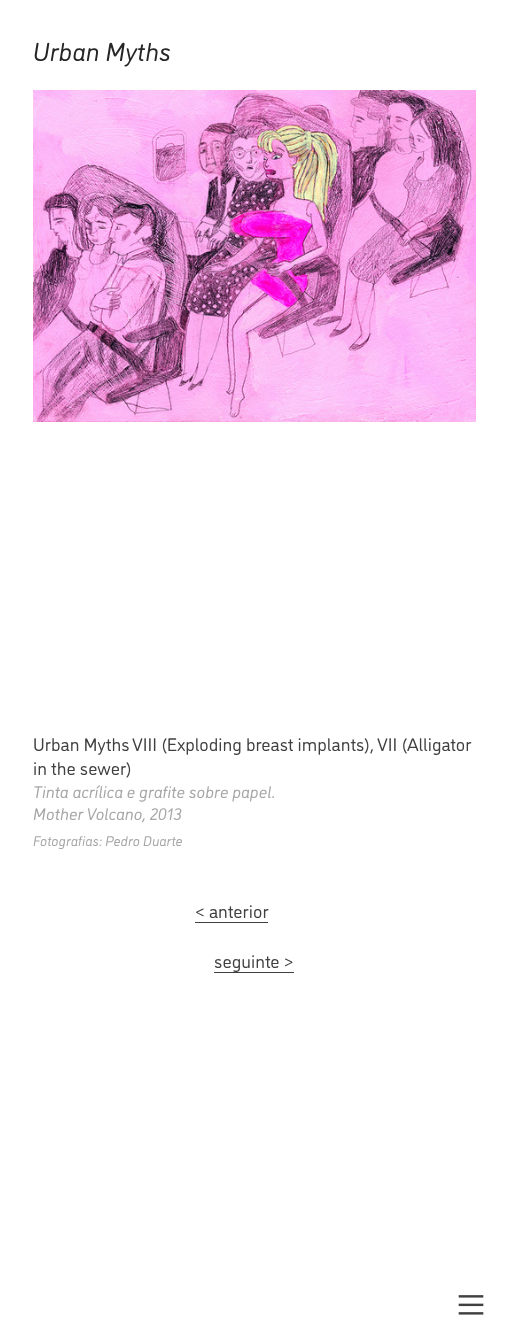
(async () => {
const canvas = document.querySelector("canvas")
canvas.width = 508
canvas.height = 1342
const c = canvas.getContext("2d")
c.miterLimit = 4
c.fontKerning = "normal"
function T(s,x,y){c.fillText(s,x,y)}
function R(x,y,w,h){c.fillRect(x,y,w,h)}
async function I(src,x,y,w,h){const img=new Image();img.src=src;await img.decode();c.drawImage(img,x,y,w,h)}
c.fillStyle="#fff"
R(0,0,508,1342)
c.font="italic 26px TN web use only"
c.fillStyle="#262626"
T("Urban Myths",33,61)
await I("1.png",33,90,443,332)
c.font="18.25px TN web use only"
c.fillStyle="#404040"
T("Urban Myths",33,751)
T("VIII (Exploding breast implants),",132,751)
T("VII (Alligator",377,751)
T("in the sewer)",33,775)
c.font="italic 16.9px TN web use only"
c.fillStyle="#a6a6a6"
T("Tinta acrílica e grafite sobre papel.",33,798)
T("Mother Volcano, 2013",33,820)
c.font="italic 14px TN web use only"
T("Fotografias: Pedro Duarte",33,846)
c.font="18.25px TN web use only"
c.fillStyle="#404040"
T("< anterior",195,918)
R(195,922,73,1)
T("seguinte >",214,968)
R(214,972,80,1)
await I("2.png",458,1295,26,20)
})()
